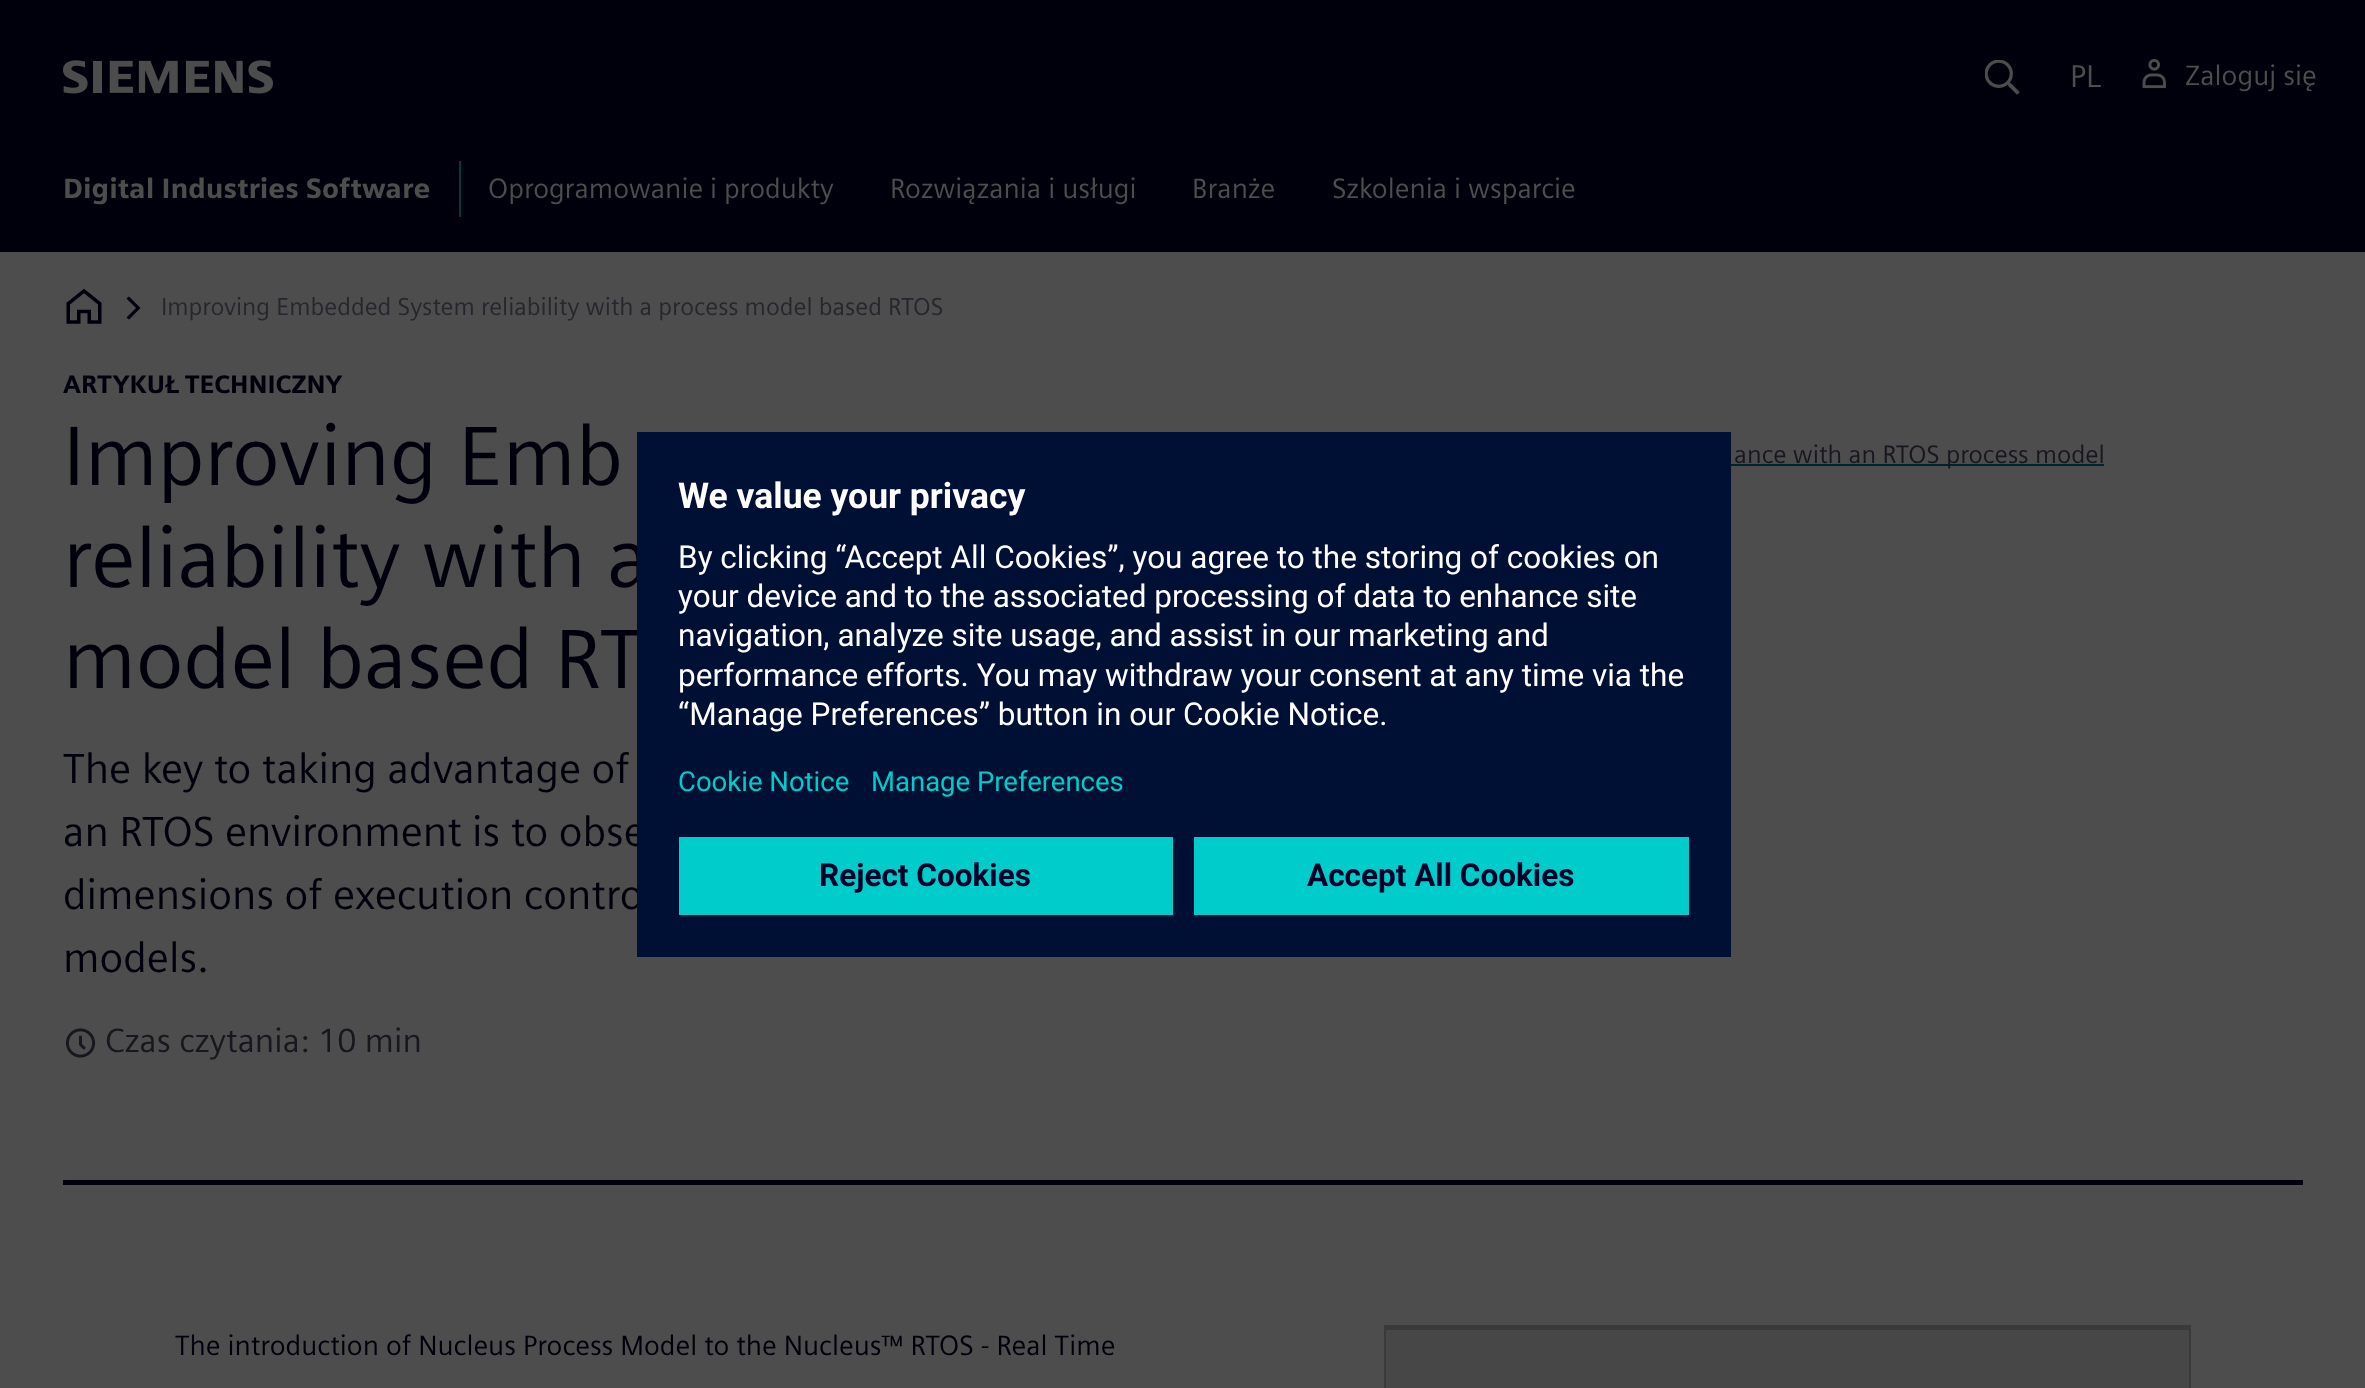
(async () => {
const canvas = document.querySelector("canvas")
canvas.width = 2365
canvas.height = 1388
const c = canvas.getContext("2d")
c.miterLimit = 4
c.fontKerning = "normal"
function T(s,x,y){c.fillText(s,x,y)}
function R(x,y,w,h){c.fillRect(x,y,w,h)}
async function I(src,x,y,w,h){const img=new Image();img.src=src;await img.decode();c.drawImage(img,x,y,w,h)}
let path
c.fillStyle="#4d4d4d"
R(0,0,2365,1388)
c.fillStyle="#00000c"
R(0,0,2365,252)
await I("1.png",1985,60,35,35)
c.font="31.5px 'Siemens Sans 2'"
c.fillStyle="#4d4d4d"
T("PL",2070,87)
await I("2.png",2142,58,24,31)
c.font="28px 'Siemens Sans 2'"
T("Zaloguj się",2185,85)
await I("3.png",63,60,210,34)
c.fillStyle="#003d3d"
R(459,161,2,56)
c.font="900 28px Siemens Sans"
c.fillStyle="#4d4d4d"
T("Digital Industries Software",63,198)
c.font="28px 'Siemens Sans 2'"
T("Oprogramowanie i produkty",488,198)
T("Rozwiązania i usługi",890,198)
T("Branże",1192,198)
T("Szkolenia i wsparcie",1332,198)
await I("4.png",66,288,36,36)
c.fillStyle="#00000c"
path = new Path2D("M129 319.5l-2.5-2l9.5-9.5l-9.5-9.5l2.5-2l11.5 11.5z")
c.fill(path)
c.font="24.5px 'Siemens Sans 2'"
c.fillStyle="#26262e"
T("Improving Embedded System reliability with a process model based RTOS",161,315)
c.fillStyle="#00000c"
R(63,1180,2240,5)
c.font="900 25.25px Siemens Sans"
T("ARTYKUŁ TECHNICZNY",63,393)
c.font="84px Siemens Sans"
T("Improving Emb",63,485)
T("reliability with a",63,587)
T("model based RT",63,688)
c.font="42px 'Siemens Sans 2'"
T("The key to taking advantage of",63,783)
T("an RTOS environment is to obse",63,846)
T("dimensions of execution contro",63,909)
T("models.",63,972)
await I("5.png",65,1028,31,30)
c.font="33.5px 'Siemens Sans 2'"
c.fillStyle="#17171f"
T("Czas czytania: 10 min",105,1052)
c.fillStyle="#00242c"
R(1731,464,373,2)
c.font="25.25px 'Siemens Sans 2'"
c.fillStyle="#17171f"
T("ance with an RTOS process model",1734,463)
c.font="28px 'Siemens Sans 2'"
c.fillStyle="#00000c"
T("The introduction of Nucleus Process Model to the Nucleus™ RTOS - Real Time",175,1355)
c.fillStyle="#3a3a3b"
R(1384,1325,807,3)
c.fillStyle="#474747"
c.beginPath()
c.rect(1385,1329,805,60)
c.fill()
c.strokeStyle="#3a3a3b"
c.lineWidth=2
c.stroke()
c.fillStyle="#001034"
R(637,432,1094,525)
c.font="bold 35.5px Roboto"
c.fillStyle="#fff"
T("We value your privacy",678,508)
c.font="31.5px Roboto"
T("By clicking “Accept All Cookies”, you agree to the storing of cookies on",678,568)
T("your device and to the associated processing of data to enhance site",678,607)
T("navigation, analyze site usage, and assist in our marketing and",678,646)
T("performance efforts. You may withdraw your consent at any time via the",678,686)
T("“Manage Preferences” button in our Cookie Notice.",678,725)
c.font="27.5px Roboto"
c.fillStyle="#0cc"
T("Cookie Notice",678,791)
T("Manage Preferences",871,791)
R(679,837,494,78)
c.font="bold 31.5px Roboto"
c.fillStyle="#000028"
T("Reject Cookies",819,886)
c.fillStyle="#0cc"
R(1194,837,495,78)
c.fillStyle="#000028"
T("Accept All Cookies",1307,886)
})()
